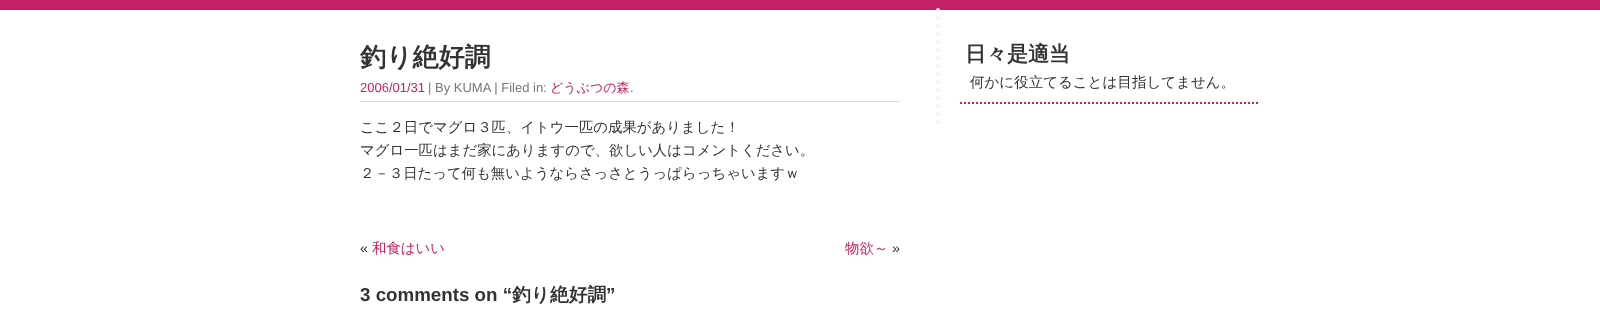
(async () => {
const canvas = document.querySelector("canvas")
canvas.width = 1600
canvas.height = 315
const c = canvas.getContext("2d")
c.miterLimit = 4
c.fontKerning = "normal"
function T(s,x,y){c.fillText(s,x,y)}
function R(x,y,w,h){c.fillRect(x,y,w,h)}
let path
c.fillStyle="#fff"
R(0,0,1600,315)
c.fillStyle="#c32364"
R(0,0,1600,10)
c.font="bold 26px WenQuanYi Zen Hei"
c.fillStyle="#333"
T("釣り絶好調",360,66)
c.font="13px Liberation Sans"
c.fillStyle="#c32364"
T("2006/01/31",360,92)
c.fillStyle="#777"
T("| By KUMA | Filed in:",428,92)
c.font="500 13px WenQuanYi Zen Hei"
c.fillStyle="#c32364"
T("どうぶつの森",550,92)
c.font="13px Liberation Sans"
c.fillStyle="#777"
T(".",630,92)
c.fillStyle="#ddd"
R(360,101,540,1)
c.font="500 14.4px WenQuanYi Zen Hei"
c.fillStyle="#333"
T("ここ２日でマグロ３匹、イトウ一匹の成果がありました！",360,132)
T("マグロ一匹はまだ家にありますので、欲しい人はコメントください。",360,155)
T("２－３日たって何も無いようならさっさとうっぱらっちゃいますｗ",360,178)
c.font="14.4px Liberation Sans"
T("«",360,253)
c.font="500 14.4px WenQuanYi Zen Hei"
c.fillStyle="#c32364"
T("和食はいい",372,253)
T("物欲～",845,253)
c.font="14.4px Liberation Sans"
c.fillStyle="#333"
T("»",892,253)
c.font="bold 18.75px Liberation Sans"
T("3 comments on “",360,301)
c.font="bold 18.75px WenQuanYi Zen Hei"
T("釣り絶好調",512,301)
c.font="bold 18.75px Liberation Sans"
T("”",606,301)
path = new Path2D("M938 10v119")
c.strokeStyle="#f3f3f3"
c.lineWidth=4
c.lineCap="round"
c.setLineDash([0,8])
c.stroke(path)
path = new Path2D("M960 103h300")
c.strokeStyle="#c32364"
c.lineWidth=2
c.lineCap="butt"
c.setLineDash([2,2])
c.stroke(path)
c.font="bold 21px WenQuanYi Zen Hei"
T("日々是適当",965,61)
c.font="500 14.5px WenQuanYi Zen Hei"
T("何かに役立てることは目指してません。",970,87)
})()
